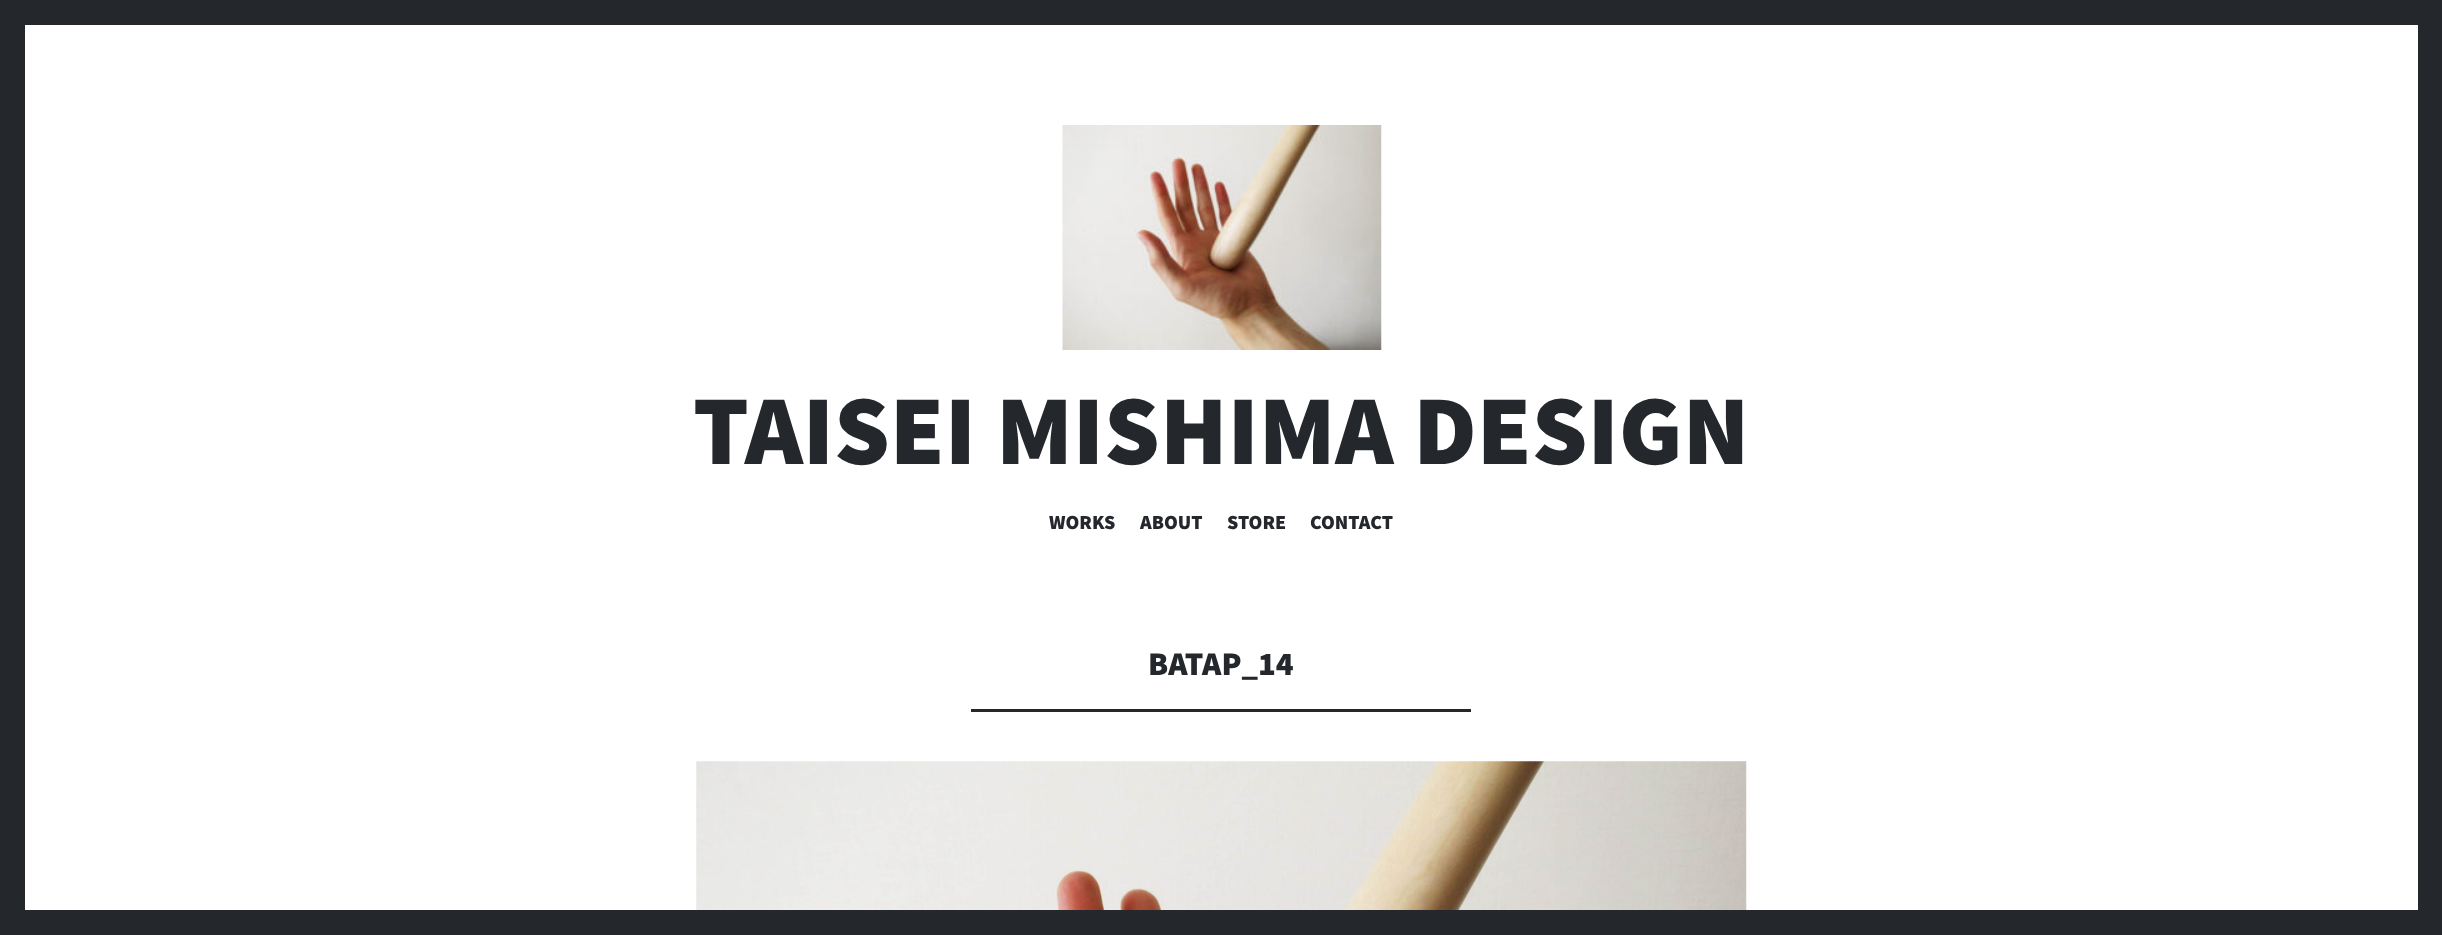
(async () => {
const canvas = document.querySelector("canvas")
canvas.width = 2442
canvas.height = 935
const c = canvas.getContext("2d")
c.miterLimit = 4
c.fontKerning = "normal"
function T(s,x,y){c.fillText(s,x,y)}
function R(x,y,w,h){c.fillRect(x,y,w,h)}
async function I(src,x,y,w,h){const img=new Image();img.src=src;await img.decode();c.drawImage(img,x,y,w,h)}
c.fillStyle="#24282d"
R(0,0,2442,935)
c.fillStyle="#fff"
R(25,25,2393,885)
await I("1.png",1062,125,320,225)
c.font="900 99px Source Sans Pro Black"
c.fillStyle="#24282d"
T("TAISEI MISHIMA DESIGN",693,464)
c.font="900 20px Source Sans Pro Black"
T("WORKS",1049,529)
T("ABOUT",1140,529)
T("STORE",1227,529)
T("CONTACT",1310,529)
c.font="900 33px Source Sans Pro Black"
T("BATAP_14",1148,675)
R(971,709,500,3)
await I("2.png",696,761,1051,149)
})()
